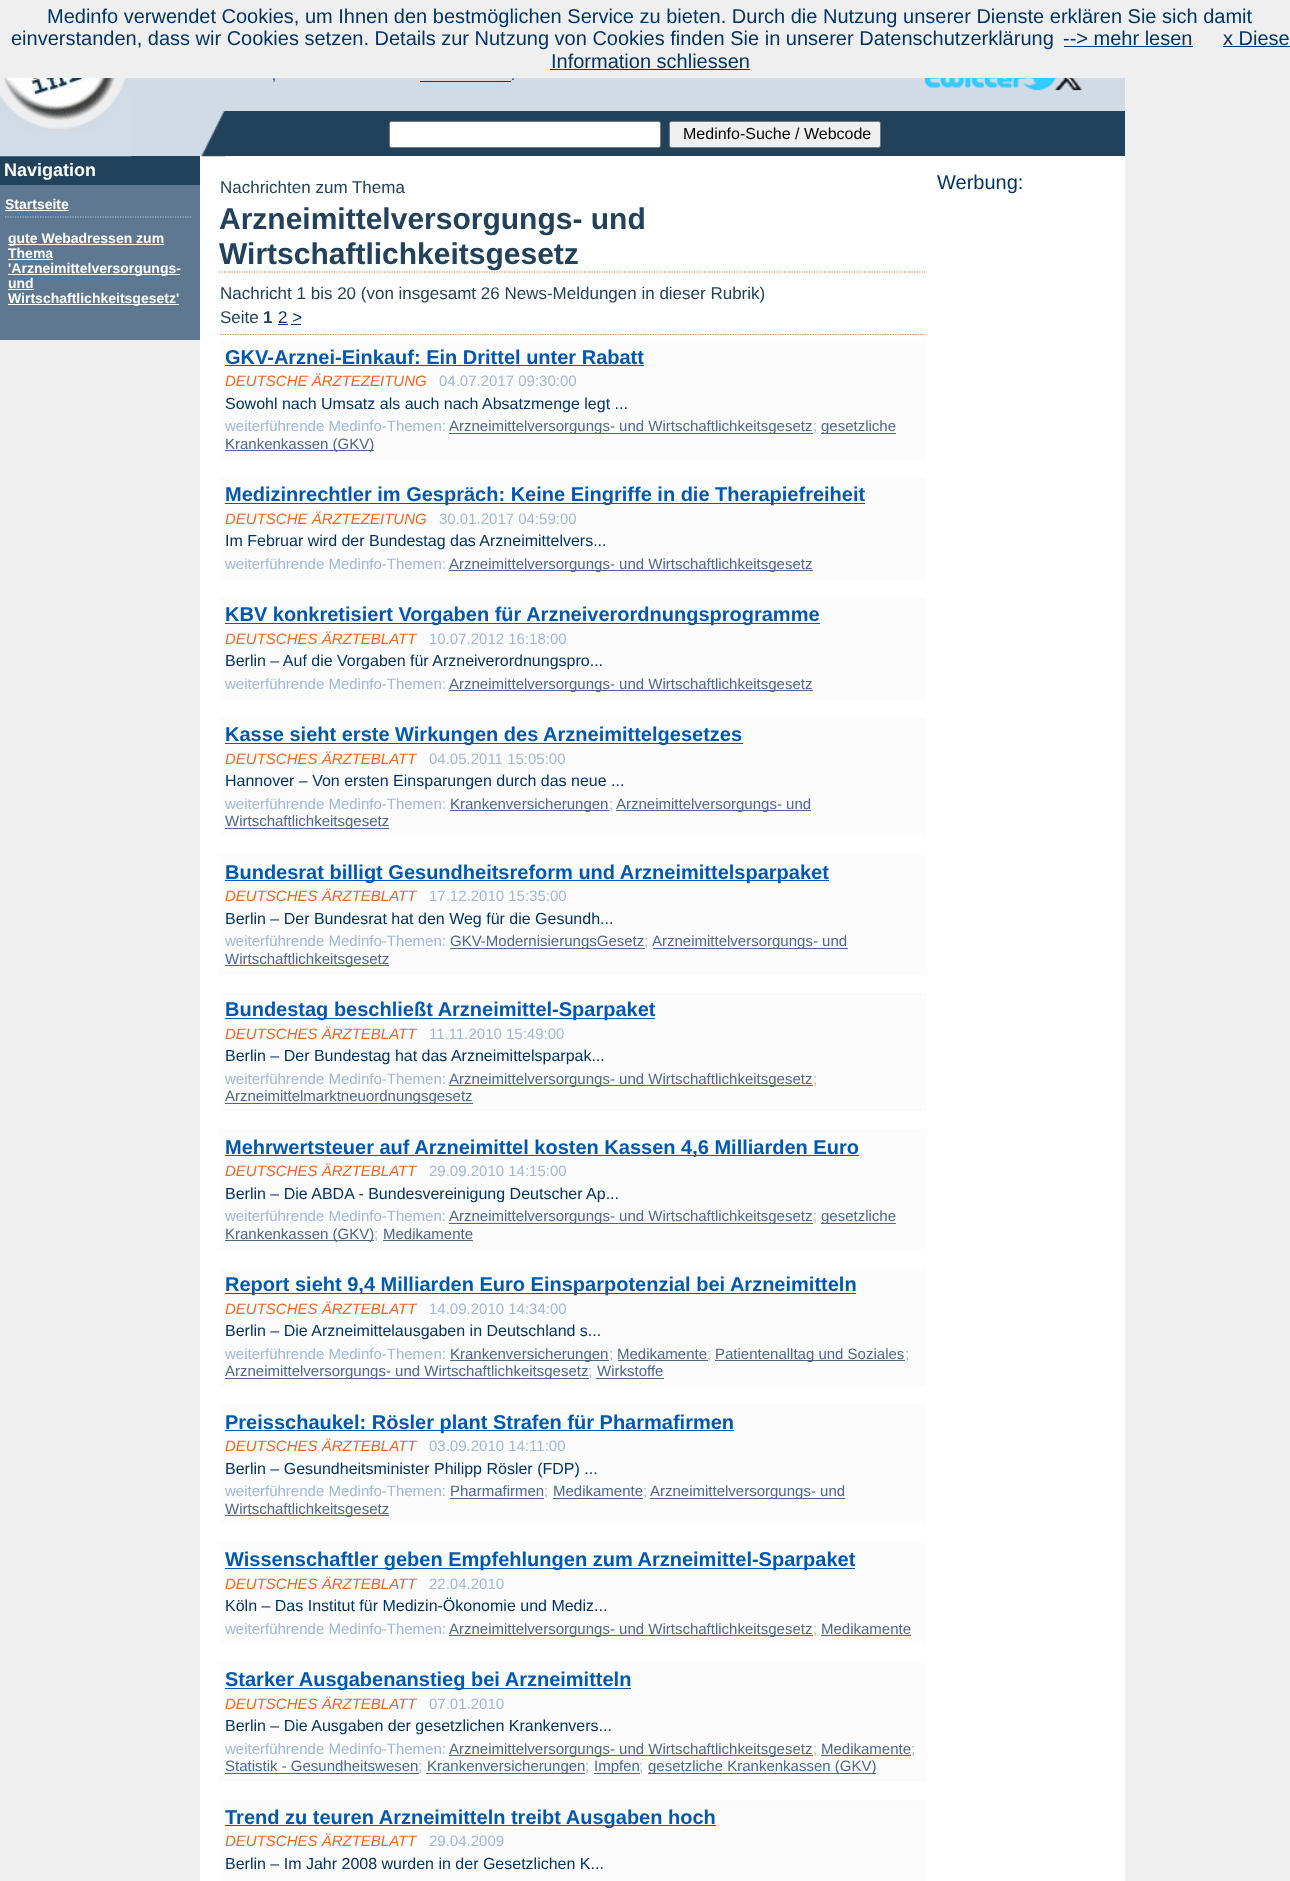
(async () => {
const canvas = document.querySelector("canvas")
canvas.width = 1290
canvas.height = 1881
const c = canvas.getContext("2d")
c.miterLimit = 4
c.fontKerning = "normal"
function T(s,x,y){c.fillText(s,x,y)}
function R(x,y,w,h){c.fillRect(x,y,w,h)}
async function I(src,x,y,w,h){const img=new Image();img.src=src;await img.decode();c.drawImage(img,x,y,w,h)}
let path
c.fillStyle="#efefef"
R(0,0,1290,1881)
c.font="20px Liberation Sans"
c.fillStyle="#036"
T("Medinfo verwendet Cookies, um Ihnen den bestmöglichen Service zu bieten. Durch die Nutzung unserer Dienste erklären Sie sich damit",47,23)
T("einverstanden, dass wir Cookies setzen. Details zur Nutzung von Cookies finden Sie in unserer Datenschutzerklärung",11,45)
T("--> mehr lesen",1063,45)
R(1064,46,129,1)
T("x Diese",1223,45)
R(1223,46,67,1)
T("Information schliessen",551,68)
R(550,69,200,1)
c.fillStyle="#d0dbe6"
R(131,78,994,33)
R(131,111,94,45)
c.fillStyle="#22415a"
R(0,156,200,29)
await I("1.png",0,78,132,79)
c.font="14px Liberation Sans"
c.fillStyle="#036"
T(",",272,80)
R(420,81,91,1)
T(".",511,80)
await I("2.png",916,78,171,13)
c.fillStyle="#22415a"
R(225,111,900,45)
c.fillStyle="#fff"
R(200,156,925,1725)
await I("3.png",201,111,24,46)
c.beginPath()
c.roundRect(389.5,121.5,271,26,2)
c.fill()
c.strokeStyle="#767676"
c.stroke()
c.fillStyle="#efefef"
c.beginPath()
c.roundRect(669.5,121.5,211,26,2)
c.fill()
c.stroke()
c.font="16px Liberation Sans"
c.fillStyle="#000"
T("Medinfo-Suche / Webcode",683,139)
c.fillStyle="#5f7892"
R(0,185,200,155)
c.font="bold 18px Liberation Sans"
c.fillStyle="#fff"
T("Navigation",4,176)
path = new Path2D("M5 217h187.5")
c.strokeStyle="#afc8e2"
c.lineWidth=1.2
c.setLineDash([1.25,1.25])
c.stroke(path)
c.font="bold 14px Liberation Sans"
T("Startseite",5,209)
R(5,210,64,1)
R(8,244,156,1)
T("gute Webadressen zum",8,243)
T("Thema",8,258)
R(8,259,45,1)
R(8,274,172,1)
T("'Arzneimittelversorgungs-",8,273)
T("und",8,288)
R(8,289,26,1)
R(8,304,171,1)
T("Wirtschaftlichkeitsgesetz'",8,303)
c.font="17px Liberation Sans"
c.fillStyle="#22415a"
T("Nachrichten zum Thema",220,193)
path = new Path2D("M219 272h707")
c.strokeStyle="#ee7839"
c.stroke(path)
c.font="bold 30px Liberation Sans"
T("Arzneimittelversorgungs- und",219,229)
T("Wirtschaftlichkeitsgesetz",219,264)
c.font="17px Liberation Sans"
T("Nachricht 1 bis 20 (von insgesamt 26 News-Meldungen in dieser Rubrik)",220,299)
path = new Path2D("M220 334.5h705")
c.stroke(path)
T("Seite",220,323)
c.font="bold 17px Liberation Sans"
T("1",263,323)
c.font="17px Liberation Sans"
c.fillStyle="#036"
T("2 >",278,323)
R(278,324,10,1)
R(291,324,10,1)
c.fillStyle="#fcfcfc"
c.beginPath()
c.rect(219.5,340.5,706,118)
c.fill()
c.strokeStyle="#fafafa"
c.lineWidth=1
c.setLineDash([])
c.stroke()
c.font="bold 20px Liberation Sans"
c.fillStyle="#0058b0"
T("GKV-Arznei-Einkauf: Ein Drittel unter Rabatt",225,364)
R(225,365,419,1)
c.font="italic 15px Liberation Sans"
c.fillStyle="#e62"
T("DEUTSCHE ÄRZTEZEITUNG",225,386)
c.font="15px Liberation Sans"
c.fillStyle="#9fb7da"
T("04.07.2017 09:30:00",439,386)
c.font="16px Liberation Sans"
c.fillStyle="#036"
T("Sowohl nach Umsatz als auch nach Absatzmenge legt ...",225,409)
c.font="15px Liberation Sans"
c.fillStyle="#9fb7da"
T("weiterführende Medinfo-Themen:",225,431)
c.fillStyle="#4f678a"
R(449,433,364,1)
T("Arzneimittelversorgungs- und Wirtschaftlichkeitsgesetz",449,431)
c.fillStyle="#9fb7da"
T(";",813,431)
c.fillStyle="#4f678a"
R(821,433,75,1)
T("gesetzliche",821,431)
R(225,450,149,1)
T("Krankenkassen (GKV)",225,449)
c.fillStyle="#fcfcfc"
c.beginPath()
c.rect(219.5,478.5,706,100)
c.fill()
c.stroke()
c.fillStyle="#0058b0"
R(225,503,640,1)
c.font="bold 20px Liberation Sans"
T("Medizinrechtler im Gespräch: Keine Eingriffe in die Therapiefreiheit",225,501)
c.font="italic 15px Liberation Sans"
c.fillStyle="#e62"
T("DEUTSCHE ÄRZTEZEITUNG",225,524)
c.font="15px Liberation Sans"
c.fillStyle="#9fb7da"
T("30.01.2017 04:59:00",439,524)
c.font="16px Liberation Sans"
c.fillStyle="#036"
T("Im Februar wird der Bundestag das Arzneimittelvers...",225,546)
c.font="15px Liberation Sans"
c.fillStyle="#9fb7da"
T("weiterführende Medinfo-Themen:",225,569)
c.fillStyle="#4f678a"
R(449,570,364,1)
T("Arzneimittelversorgungs- und Wirtschaftlichkeitsgesetz",449,569)
c.fillStyle="#fcfcfc"
c.beginPath()
c.rect(219.5,598.5,706,100)
c.fill()
c.stroke()
c.fillStyle="#0058b0"
R(225,623,595,1)
c.font="bold 20px Liberation Sans"
T("KBV konkretisiert Vorgaben für Arzneiverordnungsprogramme",225,621)
c.font="italic 15px Liberation Sans"
c.fillStyle="#e62"
T("DEUTSCHES ÄRZTEBLATT",225,644)
c.font="15px Liberation Sans"
c.fillStyle="#9fb7da"
T("10.07.2012 16:18:00",429,644)
c.font="16px Liberation Sans"
c.fillStyle="#036"
T("Berlin – Auf die Vorgaben für Arzneiverordnungspro...",225,666)
c.font="15px Liberation Sans"
c.fillStyle="#9fb7da"
T("weiterführende Medinfo-Themen:",225,689)
c.fillStyle="#4f678a"
R(449,690,364,1)
T("Arzneimittelversorgungs- und Wirtschaftlichkeitsgesetz",449,689)
c.fillStyle="#fcfcfc"
c.beginPath()
c.rect(219.5,718.5,706,117)
c.fill()
c.stroke()
c.fillStyle="#0058b0"
R(225,743,518,1)
c.font="bold 20px Liberation Sans"
T("Kasse sieht erste Wirkungen des Arzneimittelgesetzes",225,741)
c.font="italic 15px Liberation Sans"
c.fillStyle="#e62"
T("DEUTSCHES ÄRZTEBLATT",225,764)
c.font="15px Liberation Sans"
c.fillStyle="#9fb7da"
T("04.05.2011 15:05:00",429,764)
c.font="16px Liberation Sans"
c.fillStyle="#036"
T("Hannover – Von ersten Einsparungen durch das neue ...",225,786)
c.font="15px Liberation Sans"
c.fillStyle="#9fb7da"
T("weiterführende Medinfo-Themen:",225,809)
c.fillStyle="#4f678a"
R(450,810,159,1)
T("Krankenversicherungen",450,809)
c.fillStyle="#9fb7da"
T(";",609,809)
c.fillStyle="#4f678a"
R(616,810,195,1)
T("Arzneimittelversorgungs- und",616,809)
R(225,828,164,1)
T("Wirtschaftlichkeitsgesetz",225,826)
c.fillStyle="#fcfcfc"
c.beginPath()
c.rect(219.5,855.5,706,118)
c.fill()
c.stroke()
c.fillStyle="#0058b0"
R(225,880,604,1)
c.font="bold 20px Liberation Sans"
T("Bundesrat billigt Gesundheitsreform und Arzneimittelsparpaket",225,879)
c.font="italic 15px Liberation Sans"
c.fillStyle="#e62"
T("DEUTSCHES ÄRZTEBLATT",225,901)
c.font="15px Liberation Sans"
c.fillStyle="#9fb7da"
T("17.12.2010 15:35:00",429,901)
c.font="16px Liberation Sans"
c.fillStyle="#036"
T("Berlin – Der Bundesrat hat den Weg für die Gesundh...",225,924)
c.font="15px Liberation Sans"
c.fillStyle="#9fb7da"
T("weiterführende Medinfo-Themen:",225,946)
c.fillStyle="#4f678a"
R(450,948,195,1)
T("GKV-ModernisierungsGesetz",450,946)
c.fillStyle="#9fb7da"
T(";",644,946)
c.fillStyle="#4f678a"
R(653,948,195,1)
T("Arzneimittelversorgungs- und",652,946)
R(225,965,164,1)
T("Wirtschaftlichkeitsgesetz",225,964)
c.fillStyle="#fcfcfc"
c.beginPath()
c.rect(219.5,993.5,706,117)
c.fill()
c.stroke()
c.fillStyle="#0058b0"
R(225,1018,430,1)
c.font="bold 20px Liberation Sans"
T("Bundestag beschließt Arzneimittel-Sparpaket",225,1016)
c.font="italic 15px Liberation Sans"
c.fillStyle="#e62"
T("DEUTSCHES ÄRZTEBLATT",225,1039)
c.font="15px Liberation Sans"
c.fillStyle="#9fb7da"
T("11.11.2010 15:49:00",429,1039)
c.font="16px Liberation Sans"
c.fillStyle="#036"
T("Berlin – Der Bundestag hat das Arzneimittelsparpak...",225,1061)
c.font="15px Liberation Sans"
c.fillStyle="#9fb7da"
T("weiterführende Medinfo-Themen:",225,1084)
c.fillStyle="#4f678a"
R(449,1085,364,1)
T("Arzneimittelversorgungs- und Wirtschaftlichkeitsgesetz",449,1084)
c.fillStyle="#9fb7da"
T(";",813,1084)
c.fillStyle="#4f678a"
R(225,1103,248,1)
T("Arzneimittelmarktneuordnungsgesetz",225,1101)
c.fillStyle="#fcfcfc"
c.beginPath()
c.rect(219.5,1130.5,706,118)
c.fill()
c.stroke()
c.fillStyle="#0058b0"
R(225,1155,634,1)
c.font="bold 20px Liberation Sans"
T("Mehrwertsteuer auf Arzneimittel kosten Kassen 4,6 Milliarden Euro",225,1154)
c.font="italic 15px Liberation Sans"
c.fillStyle="#e62"
T("DEUTSCHES ÄRZTEBLATT",225,1176)
c.font="15px Liberation Sans"
c.fillStyle="#9fb7da"
T("29.09.2010 14:15:00",429,1176)
c.font="16px Liberation Sans"
c.fillStyle="#036"
T("Berlin – Die ABDA - Bundesvereinigung Deutscher Ap...",225,1199)
c.font="15px Liberation Sans"
c.fillStyle="#9fb7da"
T("weiterführende Medinfo-Themen:",225,1221)
c.fillStyle="#4f678a"
R(449,1223,364,1)
T("Arzneimittelversorgungs- und Wirtschaftlichkeitsgesetz",449,1221)
c.fillStyle="#9fb7da"
T(";",813,1221)
c.fillStyle="#4f678a"
R(821,1223,75,1)
T("gesetzliche",821,1221)
R(225,1240,149,1)
T("Krankenkassen (GKV)",225,1239)
c.fillStyle="#9fb7da"
T(";",374,1239)
c.fillStyle="#4f678a"
T("Medikamente",383,1239)
R(383,1240,90,1)
c.fillStyle="#fcfcfc"
c.beginPath()
c.rect(219.5,1268.5,706,117)
c.fill()
c.stroke()
c.fillStyle="#0058b0"
R(225,1293,631,1)
c.font="bold 20px Liberation Sans"
T("Report sieht 9,4 Milliarden Euro Einsparpotenzial bei Arzneimitteln",225,1291)
c.font="italic 15px Liberation Sans"
c.fillStyle="#e62"
T("DEUTSCHES ÄRZTEBLATT",225,1314)
c.font="15px Liberation Sans"
c.fillStyle="#9fb7da"
T("14.09.2010 14:34:00",429,1314)
c.font="16px Liberation Sans"
c.fillStyle="#036"
T("Berlin – Die Arzneimittelausgaben in Deutschland s...",225,1336)
c.font="15px Liberation Sans"
c.fillStyle="#9fb7da"
T("weiterführende Medinfo-Themen:",225,1359)
c.fillStyle="#4f678a"
R(450,1360,159,1)
T("Krankenversicherungen",450,1359)
c.fillStyle="#9fb7da"
T(";",609,1359)
c.fillStyle="#4f678a"
T("Medikamente",617,1359)
R(618,1360,90,1)
c.fillStyle="#9fb7da"
T(";",707,1359)
c.fillStyle="#4f678a"
R(715,1360,190,1)
T("Patientenalltag und Soziales",715,1359)
c.fillStyle="#9fb7da"
T(";",905,1359)
c.fillStyle="#4f678a"
R(225,1378,364,1)
T("Arzneimittelversorgungs- und Wirtschaftlichkeitsgesetz",225,1376)
c.fillStyle="#9fb7da"
T(";",588,1376)
c.fillStyle="#4f678a"
T("Wirkstoffe",597,1376)
R(596,1378,68,1)
c.fillStyle="#fcfcfc"
c.beginPath()
c.rect(219.5,1405.5,706,118)
c.fill()
c.stroke()
c.fillStyle="#0058b0"
R(225,1430,509,1)
c.font="bold 20px Liberation Sans"
T("Preisschaukel: Rösler plant Strafen für Pharmafirmen",225,1429)
c.font="italic 15px Liberation Sans"
c.fillStyle="#e62"
T("DEUTSCHES ÄRZTEBLATT",225,1451)
c.font="15px Liberation Sans"
c.fillStyle="#9fb7da"
T("03.09.2010 14:11:00",429,1451)
c.font="16px Liberation Sans"
c.fillStyle="#036"
T("Berlin – Gesundheitsminister Philipp Rösler (FDP) ...",225,1474)
c.font="15px Liberation Sans"
c.fillStyle="#9fb7da"
T("weiterführende Medinfo-Themen:",225,1496)
c.fillStyle="#4f678a"
T("Pharmafirmen",450,1496)
R(450,1498,94,1)
c.fillStyle="#9fb7da"
T(";",544,1496)
c.fillStyle="#4f678a"
T("Medikamente",553,1496)
R(553,1498,90,1)
c.fillStyle="#9fb7da"
T(";",643,1496)
c.fillStyle="#4f678a"
R(650,1498,195,1)
T("Arzneimittelversorgungs- und",650,1496)
R(225,1515,164,1)
T("Wirtschaftlichkeitsgesetz",225,1514)
c.fillStyle="#fcfcfc"
c.beginPath()
c.rect(219.5,1543.5,706,100)
c.fill()
c.stroke()
c.fillStyle="#0058b0"
R(225,1568,630,1)
c.font="bold 20px Liberation Sans"
T("Wissenschaftler geben Empfehlungen zum Arzneimittel-Sparpaket",225,1566)
c.font="italic 15px Liberation Sans"
c.fillStyle="#e62"
T("DEUTSCHES ÄRZTEBLATT",225,1589)
c.font="15px Liberation Sans"
c.fillStyle="#9fb7da"
T("22.04.2010",429,1589)
c.font="16px Liberation Sans"
c.fillStyle="#036"
T("Köln – Das Institut für Medizin-Ökonomie und Mediz...",225,1611)
c.font="15px Liberation Sans"
c.fillStyle="#9fb7da"
T("weiterführende Medinfo-Themen:",225,1634)
c.fillStyle="#4f678a"
R(449,1635,364,1)
T("Arzneimittelversorgungs- und Wirtschaftlichkeitsgesetz",449,1634)
c.fillStyle="#9fb7da"
T(";",813,1634)
c.fillStyle="#4f678a"
T("Medikamente",821,1634)
R(821,1635,90,1)
c.fillStyle="#fcfcfc"
c.beginPath()
c.rect(219.5,1663.5,706,117)
c.fill()
c.stroke()
c.fillStyle="#0058b0"
R(225,1688,406,1)
c.font="bold 20px Liberation Sans"
T("Starker Ausgabenanstieg bei Arzneimitteln",225,1686)
c.font="italic 15px Liberation Sans"
c.fillStyle="#e62"
T("DEUTSCHES ÄRZTEBLATT",225,1709)
c.font="15px Liberation Sans"
c.fillStyle="#9fb7da"
T("07.01.2010",429,1709)
c.font="16px Liberation Sans"
c.fillStyle="#036"
T("Berlin – Die Ausgaben der gesetzlichen Krankenvers...",225,1731)
c.font="15px Liberation Sans"
c.fillStyle="#9fb7da"
T("weiterführende Medinfo-Themen:",225,1754)
c.fillStyle="#4f678a"
R(449,1755,364,1)
T("Arzneimittelversorgungs- und Wirtschaftlichkeitsgesetz",449,1754)
c.fillStyle="#9fb7da"
T(";",813,1754)
c.fillStyle="#4f678a"
T("Medikamente",821,1754)
R(821,1755,90,1)
c.fillStyle="#9fb7da"
T(";",911,1754)
c.fillStyle="#4f678a"
T("Statistik - Gesundheitswesen",225,1771)
R(225,1773,194,1)
c.fillStyle="#9fb7da"
T(";",418,1771)
c.fillStyle="#4f678a"
R(426,1773,159,1)
T("Krankenversicherungen",427,1771)
c.fillStyle="#9fb7da"
T(";",585,1771)
c.fillStyle="#4f678a"
R(594,1773,46,1)
T("Impfen",594,1771)
c.fillStyle="#9fb7da"
T(";",639,1771)
c.fillStyle="#4f678a"
R(648,1773,228,1)
T("gesetzliche Krankenkassen (GKV)",648,1771)
c.fillStyle="#fcfcfc"
c.beginPath()
c.rect(219.5,1800.5,706,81)
c.fill()
c.stroke()
c.fillStyle="#0058b0"
R(225,1825,491,1)
c.font="bold 20px Liberation Sans"
T("Trend zu teuren Arzneimitteln treibt Ausgaben hoch",225,1824)
c.font="italic 15px Liberation Sans"
c.fillStyle="#e62"
T("DEUTSCHES ÄRZTEBLATT",225,1846)
c.font="15px Liberation Sans"
c.fillStyle="#9fb7da"
T("29.04.2009",429,1846)
c.font="16px Liberation Sans"
c.fillStyle="#036"
T("Berlin – Im Jahr 2008 wurden in der Gesetzlichen K...",225,1869)
c.font="20px Liberation Sans"
T("Werbung:",937,189)
})()
